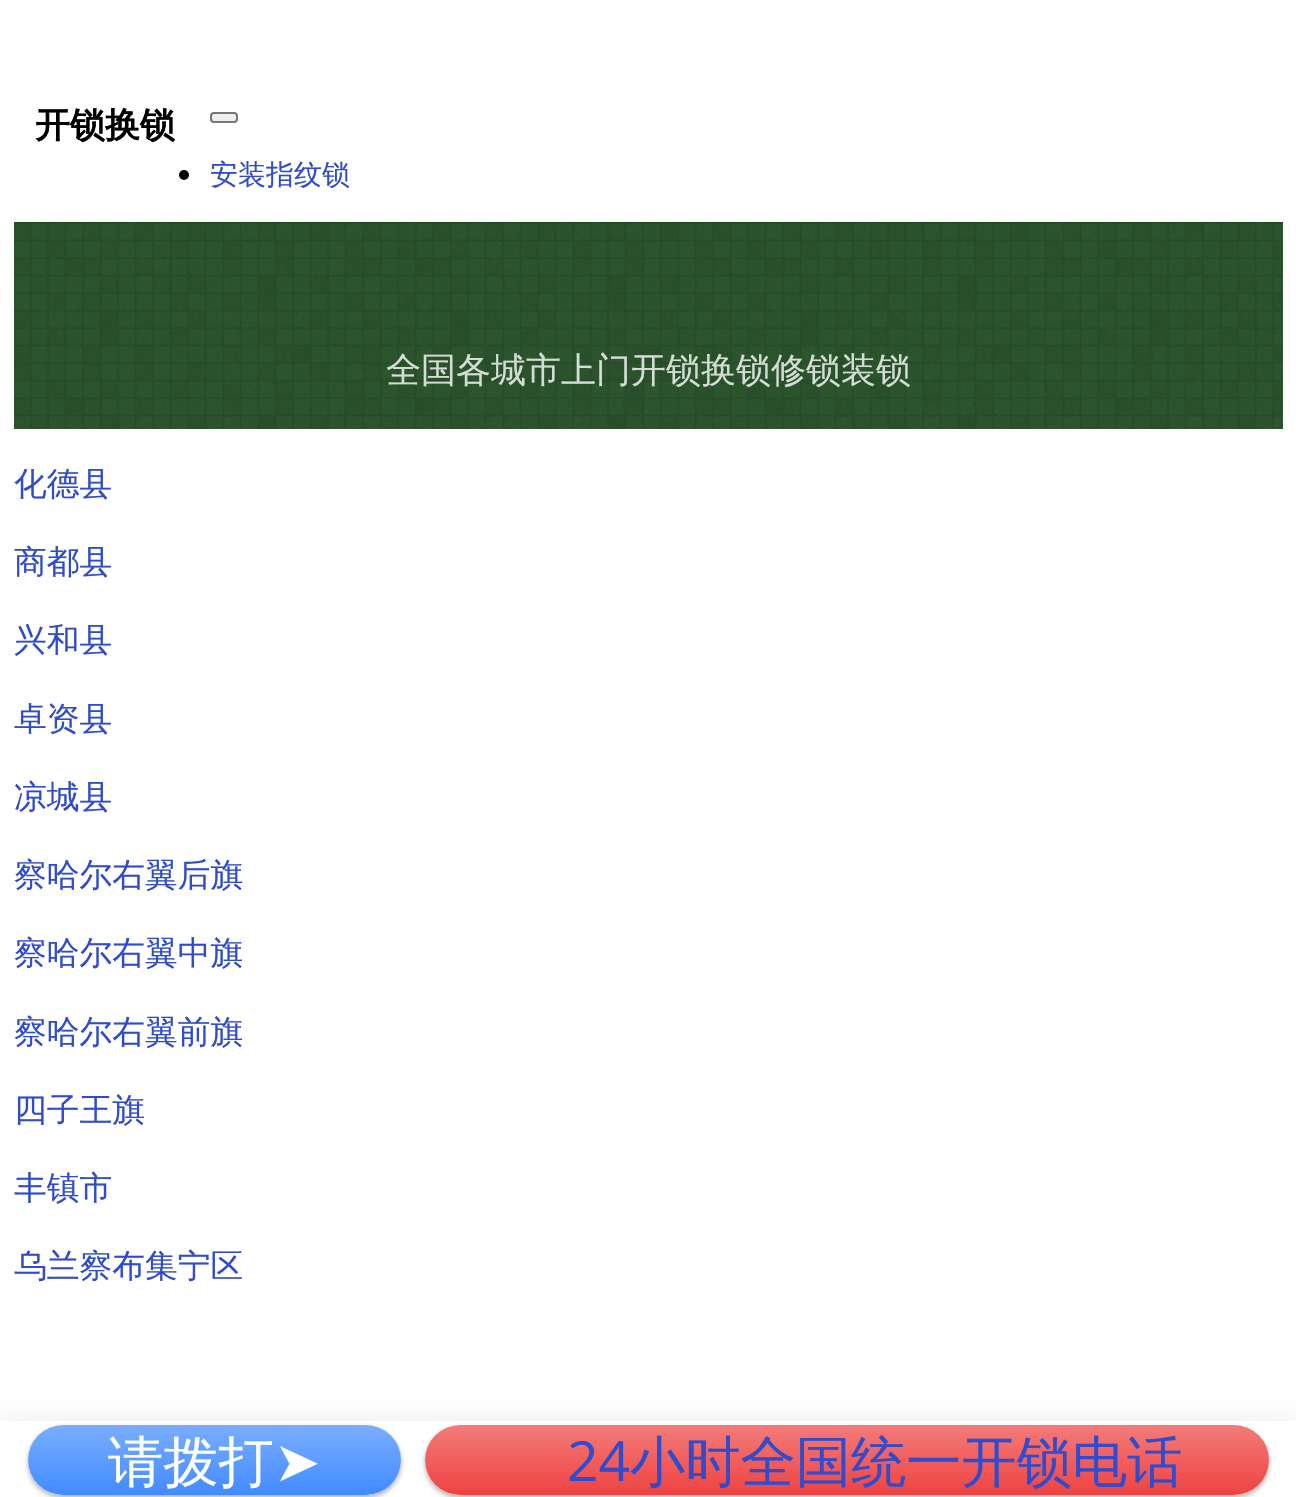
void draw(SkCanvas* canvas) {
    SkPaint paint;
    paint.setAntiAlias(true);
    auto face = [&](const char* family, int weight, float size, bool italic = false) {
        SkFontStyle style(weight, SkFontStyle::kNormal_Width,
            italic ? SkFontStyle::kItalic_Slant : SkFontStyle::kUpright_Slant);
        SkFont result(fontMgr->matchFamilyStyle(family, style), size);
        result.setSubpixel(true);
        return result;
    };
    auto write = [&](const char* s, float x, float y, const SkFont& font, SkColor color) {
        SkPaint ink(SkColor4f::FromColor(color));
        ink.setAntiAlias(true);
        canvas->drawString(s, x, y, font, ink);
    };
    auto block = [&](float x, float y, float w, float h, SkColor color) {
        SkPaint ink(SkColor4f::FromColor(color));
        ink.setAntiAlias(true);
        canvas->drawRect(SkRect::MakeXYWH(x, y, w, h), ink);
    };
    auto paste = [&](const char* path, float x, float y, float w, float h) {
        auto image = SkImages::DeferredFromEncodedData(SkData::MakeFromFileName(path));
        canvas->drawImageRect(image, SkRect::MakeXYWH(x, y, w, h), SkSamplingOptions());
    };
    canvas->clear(SK_ColorWHITE);
    auto kFont1 = face("WenQuanYi Zen Hei", 700, 35);
    write("开锁换锁", 35, 137, kFont1, SK_ColorBLACK);
    paint.setColor(SkColorSetRGB(239, 239, 239));
    canvas->drawRoundRect(SkRect::MakeXYWH(211, 113, 26, 9), 3, 3, paint);
    paint.setStyle(SkPaint::kStroke_Style);
    paint.setStrokeWidth(2);
    paint.setColor(SkColorSetRGB(118, 118, 118));
    canvas->drawRoundRect(SkRect::MakeXYWH(211, 113, 26, 9), 3, 3, paint);
    paint.setStyle(SkPaint::kFill_Style);
    paint.setColor(SK_ColorBLACK);
    canvas->drawCircle(184, 175, 5, paint);
    auto kFont2 = face("WenQuanYi Zen Hei", 500, 28);
    write("安装指纹锁", 210, 184, kFont2, SkColorSetRGB(48, 76, 204));
    block(14, 222, 1269, 207, SkColorSetRGB(43, 84, 44));
    paste("pic1.png", 14, 222, 1269, 207);
    auto kFont3 = face("WenQuanYi Zen Hei", 500, 35);
    write("全国各城市上门开锁换锁修锁装锁", 386, 382, kFont3, SkColorSetRGB(212, 220, 213));
    auto kFont4 = face("WenQuanYi Zen Hei", 500, 32.75f);
    write("化德县", 14, 495, kFont4, SkColorSetRGB(48, 76, 204));
    write("商都县", 14, 573, kFont4, SkColorSetRGB(48, 76, 204));
    write("兴和县", 14, 651, kFont4, SkColorSetRGB(48, 76, 204));
    write("卓资县", 14, 730, kFont4, SkColorSetRGB(48, 76, 204));
    write("凉城县", 14, 808, kFont4, SkColorSetRGB(48, 76, 204));
    write("察哈尔右翼后旗", 14, 886, kFont4, SkColorSetRGB(48, 76, 204));
    write("察哈尔右翼中旗", 14, 964, kFont4, SkColorSetRGB(48, 76, 204));
    write("察哈尔右翼前旗", 14, 1043, kFont4, SkColorSetRGB(48, 76, 204));
    write("四子王旗", 14, 1121, kFont4, SkColorSetRGB(48, 76, 204));
    write("丰镇市", 14, 1199, kFont4, SkColorSetRGB(48, 76, 204));
    write("乌兰察布集宁区", 14, 1277, kFont4, SkColorSetRGB(48, 76, 204));
    paint.setColor(SkColorSetARGB(33, 74, 74, 74));
    paint.setMaskFilter(SkMaskFilter::MakeBlur(kNormal_SkBlurStyle, 16));
    canvas->drawRect(SkRect::MakeXYWH(0, 1423, 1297, 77), paint);
    paint.setMaskFilter(nullptr);
    block(0, 1421, 1296, 76, SK_ColorWHITE);
    canvas->save();
    canvas->clipPath(SkPathBuilder(SkPathFillType::kEvenOdd).moveTo(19, 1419).lineTo(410, 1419).lineTo(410, 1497).lineTo(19, 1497).close().moveTo(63, 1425).lineTo(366, 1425).cubicTo(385.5f, 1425, 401, 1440.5f, 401, 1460).cubicTo(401, 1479.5f, 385.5f, 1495, 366, 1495).lineTo(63, 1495).cubicTo(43.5f, 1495, 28, 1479.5f, 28, 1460).cubicTo(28, 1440.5f, 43.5f, 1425, 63, 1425).close().detach(), true);
    paint.setColor(SkColorSetARGB(77, 0, 0, 0));
    paint.setMaskFilter(SkMaskFilter::MakeBlur(kNormal_SkBlurStyle, 2.5f));
    canvas->drawRoundRect(SkRect::MakeXYWH(28, 1428, 373, 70), 35, 35, paint);
    paint.setMaskFilter(nullptr);
    canvas->restore();
    {
        const SkColor colors[] = {SkColorSetARGB(179, 65, 139, 255), SkColorSetRGB(65, 139, 255)};
        const float stops[] = {0, 1};
        const SkPoint ends[] = {{214, 1425}, {214, 1495}};
        paint.setShader(SkGradientShader::MakeLinear(ends, colors, stops, 2, SkTileMode::kClamp));
        paint.setAlpha(255);
    }
    canvas->drawRoundRect(SkRect::MakeXYWH(28, 1425, 373, 70), 35, 35, paint);
    auto kFont5 = face("WenQuanYi Zen Hei", 500, 55.25f);
    write("请拨打", 108, 1481, kFont5, SK_ColorWHITE);
    auto kFont6 = face("DejaVu Sans", 400, 55.25f);
    write("➤", 274, 1481, kFont6, SK_ColorWHITE);
    canvas->save();
    canvas->clipPath(SkPathBuilder(SkPathFillType::kEvenOdd).moveTo(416, 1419).lineTo(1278, 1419).lineTo(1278, 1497).lineTo(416, 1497).close().moveTo(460, 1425).lineTo(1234, 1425).cubicTo(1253.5f, 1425, 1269, 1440.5f, 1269, 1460).cubicTo(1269, 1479.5f, 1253.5f, 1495, 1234, 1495).lineTo(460, 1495).cubicTo(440.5f, 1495, 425, 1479.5f, 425, 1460).cubicTo(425, 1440.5f, 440.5f, 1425, 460, 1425).close().detach(), true);
    paint.setShader(nullptr);
    paint.setColor(SkColorSetARGB(77, 0, 0, 0));
    paint.setMaskFilter(SkMaskFilter::MakeBlur(kNormal_SkBlurStyle, 2.5f));
    canvas->drawRoundRect(SkRect::MakeXYWH(425, 1428, 844, 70), 35, 35, paint);
    paint.setMaskFilter(nullptr);
    canvas->restore();
    {
        const SkColor colors[] = {SkColorSetARGB(179, 238, 67, 65), SkColorSetRGB(238, 67, 65)};
        const float stops[] = {0, 1};
        const SkPoint ends[] = {{847, 1425}, {847, 1495}};
        paint.setShader(SkGradientShader::MakeLinear(ends, colors, stops, 2, SkTileMode::kClamp));
        paint.setAlpha(255);
    }
    canvas->drawRoundRect(SkRect::MakeXYWH(425, 1425, 844, 70), 35, 35, paint);
    auto kFont7 = face("Open Sans", 400, 55.25f);
    write("24", 567, 1481, kFont7, SkColorSetRGB(48, 76, 204));
    write("小时全国统一开锁电话", 630, 1481, kFont5, SkColorSetRGB(48, 76, 204));
}
